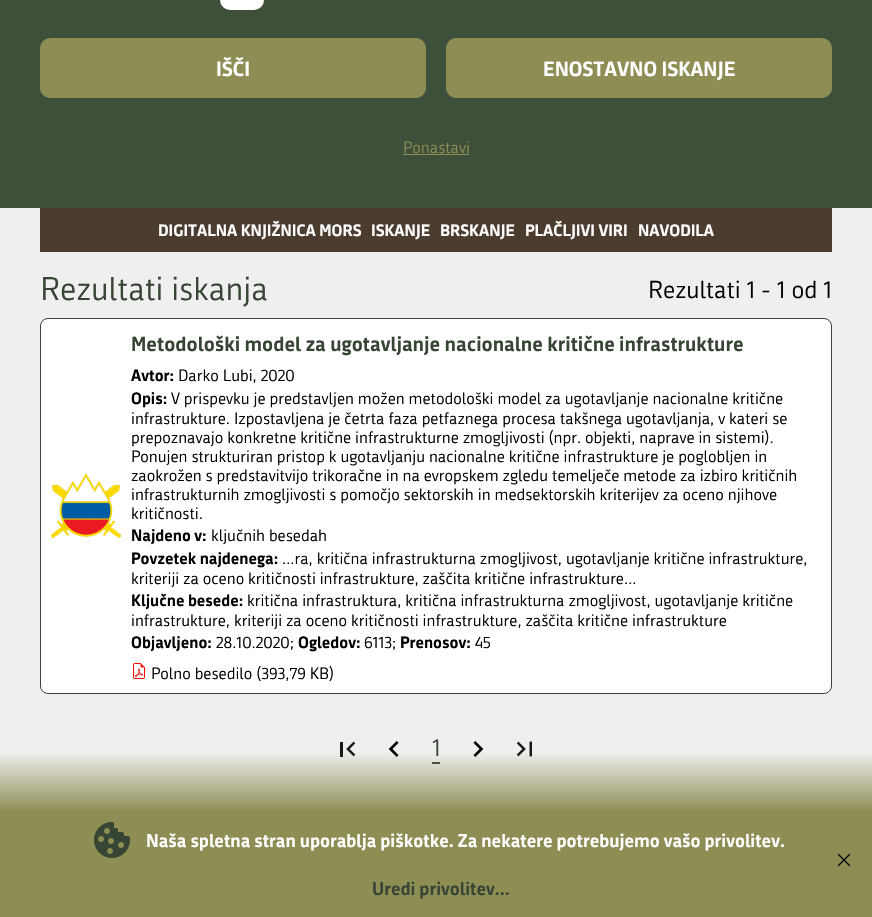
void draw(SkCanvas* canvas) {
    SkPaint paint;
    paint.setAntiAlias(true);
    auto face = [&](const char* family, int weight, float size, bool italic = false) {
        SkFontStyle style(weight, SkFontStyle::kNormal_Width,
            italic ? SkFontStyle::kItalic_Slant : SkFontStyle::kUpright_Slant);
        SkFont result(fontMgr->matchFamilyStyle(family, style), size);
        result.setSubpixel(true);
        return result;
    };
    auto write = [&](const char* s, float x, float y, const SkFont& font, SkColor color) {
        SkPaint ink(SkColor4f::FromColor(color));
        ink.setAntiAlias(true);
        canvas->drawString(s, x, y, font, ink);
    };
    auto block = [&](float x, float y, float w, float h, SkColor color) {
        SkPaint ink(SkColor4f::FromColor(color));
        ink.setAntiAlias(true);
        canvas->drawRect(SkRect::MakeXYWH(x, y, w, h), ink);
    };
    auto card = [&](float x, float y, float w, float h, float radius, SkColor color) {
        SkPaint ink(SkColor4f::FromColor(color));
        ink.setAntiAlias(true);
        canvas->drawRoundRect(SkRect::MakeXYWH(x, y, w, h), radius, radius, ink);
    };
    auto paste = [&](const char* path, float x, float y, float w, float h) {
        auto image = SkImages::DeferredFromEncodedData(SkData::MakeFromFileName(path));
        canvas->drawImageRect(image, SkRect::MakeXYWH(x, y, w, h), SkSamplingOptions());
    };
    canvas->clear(SkColorSetRGB(239, 239, 239));
    block(0, 0, 872, 208, SkColorSetRGB(63, 80, 58));
    card(220, -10, 44, 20, 10, SK_ColorWHITE);
    card(40, 38, 386, 60, 10, SkColorSetRGB(141, 141, 84));
    auto kFont1 = face("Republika", 700, 20);
    write("IŠČI", 216, 76, kFont1, SK_ColorWHITE);
    card(446, 38, 386, 60, 10, SkColorSetRGB(141, 141, 84));
    write("ENOSTAVNO ISKANJE", 543, 76, kFont1, SK_ColorWHITE);
    auto kFont2 = face("Republika", 400, 16);
    write("Ponastavi", 403, 153, kFont2, SkColorSetRGB(141, 141, 84));
    block(403, 154, 66, 1, SkColorSetRGB(141, 141, 84));
    block(40, 208, 792, 44, SkColorSetRGB(75, 60, 48));
    auto kFont3 = face("Republika", 700, 16);
    write("DIGITALNA KNJIŽNICA MORS", 158, 236, kFont3, SK_ColorWHITE);
    write("ISKANJE", 371, 236, kFont3, SK_ColorWHITE);
    write("BRSKANJE", 440, 236, kFont3, SK_ColorWHITE);
    write("PLAČLJIVI VIRI", 525, 236, kFont3, SK_ColorWHITE);
    write("NAVODILA", 638, 236, kFont3, SK_ColorWHITE);
    auto kFont4 = face("Republika", 400, 32);
    write("Rezultati iskanja", 40, 300, kFont4, SkColorSetRGB(55, 70, 52));
    auto kFont5 = face("Republika", 400, 24);
    write("Rezultati 1 - 1 od 1", 648, 298, kFont5, SK_ColorBLACK);
    paint.setColor(SK_ColorWHITE);
    canvas->drawRoundRect(SkRect::MakeXYWH(40.5f, 318.5f, 791, 375), 7.5f, 7.5f, paint);
    paint.setStyle(SkPaint::kStroke_Style);
    paint.setStrokeWidth(1);
    paint.setColor(SkColorSetRGB(55, 70, 52));
    canvas->drawRoundRect(SkRect::MakeXYWH(40.5f, 318.5f, 791, 375), 7.5f, 7.5f, paint);
    paste("pic1.png", 51, 473, 70, 66);
    write("Metodološki model za ugotavljanje nacionalne kritične infrastrukture", 131, 351, kFont1, SkColorSetRGB(55, 70, 52));
    write("Avtor:", 131, 381, kFont3, SK_ColorBLACK);
    write("Darko Lubi, 2020", 178, 381, kFont2, SK_ColorBLACK);
    write("Opis:", 131, 404, kFont3, SK_ColorBLACK);
    write("V prispevku je predstavljen možen metodološki model za ugotavljanje nacionalne kritične", 171, 404, kFont2, SK_ColorBLACK);
    write("infrastrukture. Izpostavljena je četrta faza petfaznega procesa takšnega ugotavljanja, v kateri se", 131, 424, kFont2, SK_ColorBLACK);
    write("prepoznavajo konkretne kritične infrastrukturne zmogljivosti (npr. objekti, naprave in sistemi).", 131, 443, kFont2, SK_ColorBLACK);
    write("Ponujen strukturiran pristop k ugotavljanju nacionalne kritične infrastrukture je poglobljen in", 131, 462, kFont2, SK_ColorBLACK);
    write("zaokrožen s predstavitvijo trikoračne in na evropskem zgledu temelječe metode za izbiro kritičnih", 131, 481, kFont2, SK_ColorBLACK);
    write("infrastrukturnih zmogljivosti s pomočjo sektorskih in medsektorskih kriterijev za oceno njihove", 131, 500, kFont2, SK_ColorBLACK);
    write("kritičnosti.", 131, 519, kFont2, SK_ColorBLACK);
    write("Najdeno v:", 131, 541, kFont3, SK_ColorBLACK);
    write("ključnih besedah", 211, 541, kFont2, SK_ColorBLACK);
    write("Povzetek najdenega:", 131, 564, kFont3, SK_ColorBLACK);
    write("...ra, kritična infrastrukturna zmogljivost, ugotavljanje kritične infrastrukture,", 282, 564, kFont2, SK_ColorBLACK);
    write("kriteriji za oceno kritičnosti infrastrukture, zaščita kritične infrastrukture...", 131, 584, kFont2, SK_ColorBLACK);
    write("Ključne besede:", 131, 606, kFont3, SK_ColorBLACK);
    write("kritična infrastruktura, kritična infrastrukturna zmogljivost, ugotavljanje kritične", 247, 606, kFont2, SK_ColorBLACK);
    write("infrastrukture, kriteriji za oceno kritičnosti infrastrukture, zaščita kritične infrastrukture", 131, 626, kFont2, SK_ColorBLACK);
    write("Objavljeno:", 131, 648, kFont3, SK_ColorBLACK);
    write("28.10.2020;", 216, 648, kFont2, SK_ColorBLACK);
    write("Ogledov:", 298, 648, kFont3, SK_ColorBLACK);
    write("6113;", 364, 648, kFont2, SK_ColorBLACK);
    write("Prenosov:", 400, 648, kFont3, SK_ColorBLACK);
    write("45", 475, 648, kFont2, SK_ColorBLACK);
    paste("pic2.png", 133, 663, 12, 16);
    write("Polno besedilo (393,79 KB)", 151, 679, kFont2, SK_ColorBLACK);
    paste("pic3.png", 340, 741, 16, 16);
    paste("pic4.png", 388, 741, 11, 16);
    write("1", 432, 756, kFont5, SkColorSetRGB(55, 70, 52));
    block(432, 762, 8, 2, SkColorSetRGB(55, 70, 52));
    paste("pic5.png", 473, 741, 11, 16);
    paste("pic6.png", 516, 741, 16, 16);
    paint.setStyle(SkPaint::kFill_Style);
    {
        const SkColor colors[] = {SkColorSetARGB(0, 141, 141, 84), SkColorSetRGB(141, 141, 84)};
        const float stops[] = {0, 1};
        const SkPoint ends[] = {{436, 752}, {436, 812}};
        paint.setShader(SkGradientShader::MakeLinear(ends, colors, stops, 2, SkTileMode::kClamp));
        paint.setAlpha(255);
    }
    canvas->drawRect(SkRect::MakeXYWH(0, 753, 872, 58), paint);
    block(0, 811, 872, 106, SkColorSetRGB(141, 141, 84));
    paste("pic7.png", 94, 822, 36, 36);
    auto kFont6 = face("Republika", 700, 18);
    write("Naša spletna stran uporablja piškotke. Za nekatere potrebujemo vašo privolitev.", 146, 847, kFont6, SK_ColorWHITE);
    write("Uredi privolitev...", 372, 895, kFont6, SkColorSetRGB(55, 70, 52));
    paint.setStyle(SkPaint::kStroke_Style);
    paint.setStrokeWidth(1.3f);
    paint.setStrokeCap(SkPaint::kRound_Cap);
    paint.setStrokeJoin(SkPaint::kRound_Join);
    paint.setShader(nullptr);
    paint.setColor(SK_ColorBLACK);
    canvas->drawPath(SkPathBuilder().moveTo(838.5f, 854.5f).lineTo(849.5f, 865.5f).moveTo(838.5f, 865.5f).lineTo(849.5f, 854.5f).detach(), paint);
}
